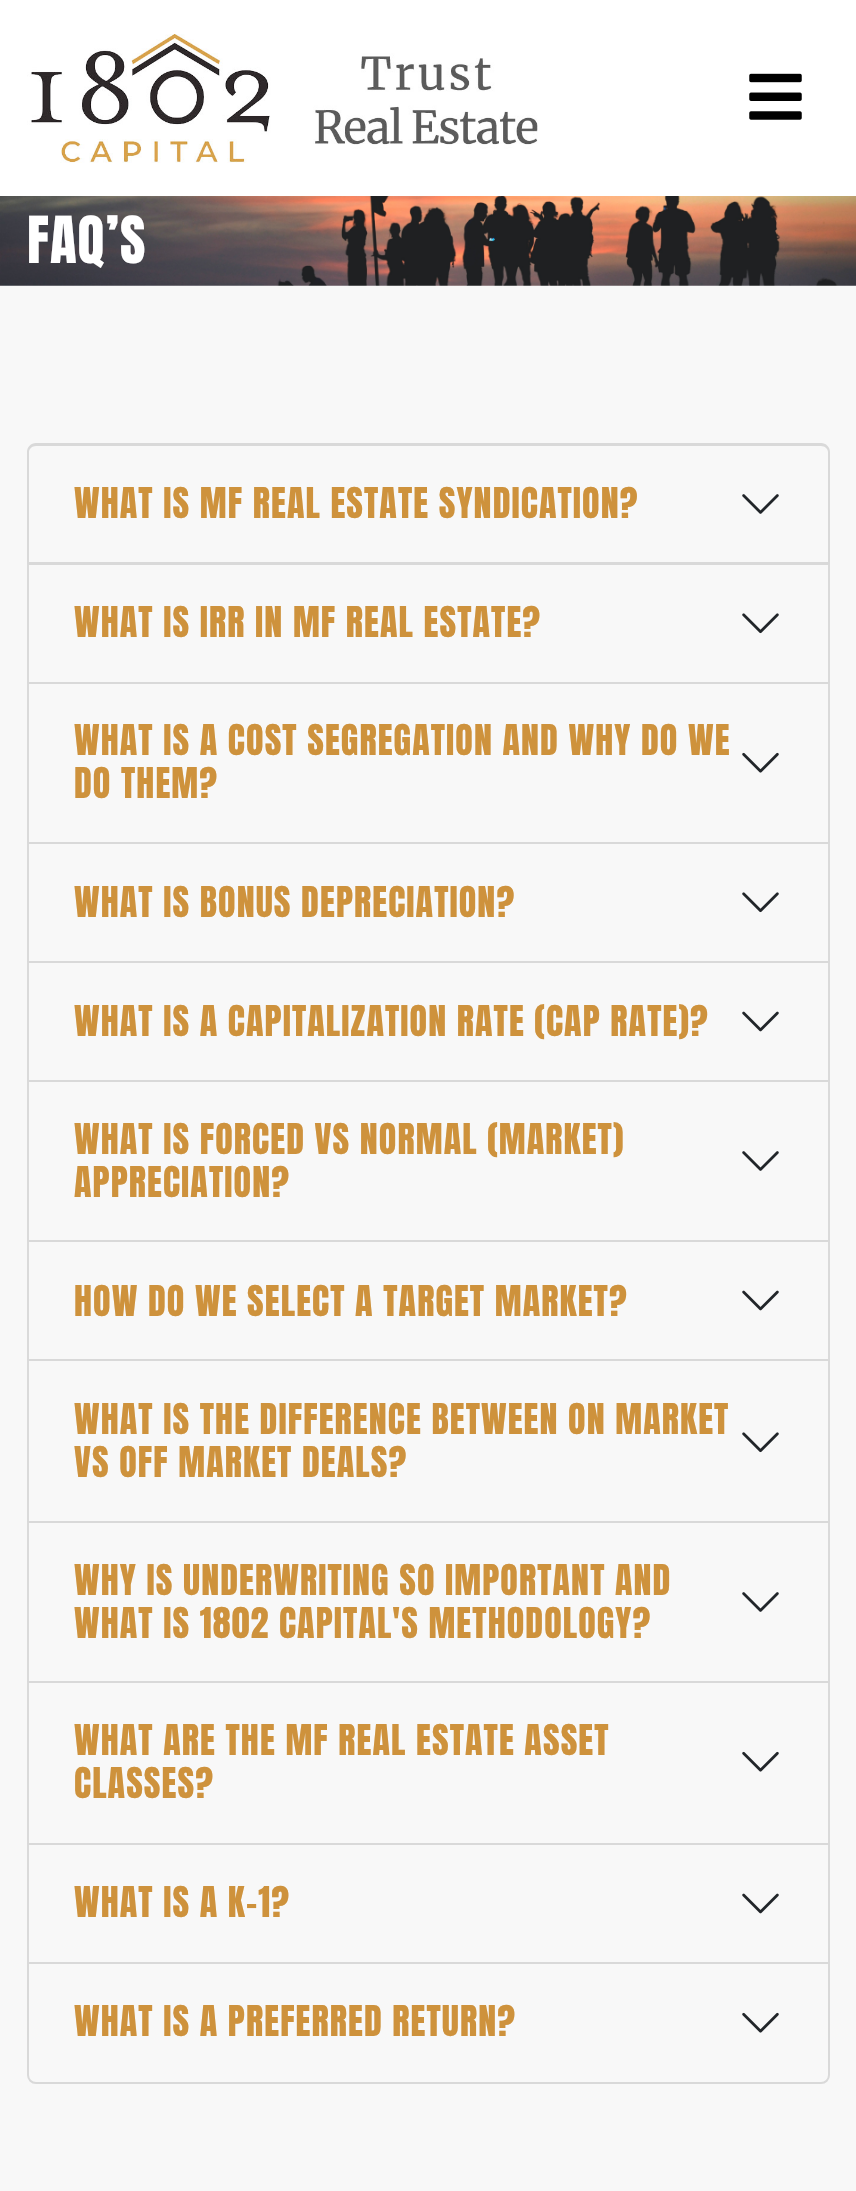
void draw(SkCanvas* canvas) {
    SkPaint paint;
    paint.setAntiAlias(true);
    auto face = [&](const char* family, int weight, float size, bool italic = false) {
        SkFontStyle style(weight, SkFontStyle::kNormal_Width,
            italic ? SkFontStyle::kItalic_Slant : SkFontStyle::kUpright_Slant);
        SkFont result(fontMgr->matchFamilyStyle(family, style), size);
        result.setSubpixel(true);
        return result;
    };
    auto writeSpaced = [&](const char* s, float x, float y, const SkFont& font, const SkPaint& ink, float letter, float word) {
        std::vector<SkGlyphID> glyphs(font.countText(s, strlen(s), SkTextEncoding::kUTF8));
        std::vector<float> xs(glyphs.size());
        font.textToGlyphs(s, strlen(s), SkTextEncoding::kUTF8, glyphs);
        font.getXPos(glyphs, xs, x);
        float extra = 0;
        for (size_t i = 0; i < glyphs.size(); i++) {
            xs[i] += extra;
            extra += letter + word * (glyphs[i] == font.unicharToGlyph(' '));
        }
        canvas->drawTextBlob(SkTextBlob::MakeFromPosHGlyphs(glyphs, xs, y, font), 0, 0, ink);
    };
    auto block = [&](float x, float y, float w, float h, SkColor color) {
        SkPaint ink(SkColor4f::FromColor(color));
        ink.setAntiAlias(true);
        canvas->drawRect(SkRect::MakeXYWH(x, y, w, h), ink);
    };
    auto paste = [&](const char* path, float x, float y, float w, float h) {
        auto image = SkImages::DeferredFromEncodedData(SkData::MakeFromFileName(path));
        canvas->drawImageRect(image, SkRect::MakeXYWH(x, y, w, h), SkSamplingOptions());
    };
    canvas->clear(SK_ColorWHITE);
    paste("pic1.png", 27, 34, 511, 129);
    paste("pic2.png", 749, 73, 53, 47);
    paste("pic3.png", 0, 196, 856, 90);
    auto kFont1 = face("Anton", 400, 55);
    paint.setColor(SK_ColorWHITE);
    writeSpaced("FAQ’S", 27, 263, kFont1, paint, 1.1f, 0);
    block(0, 286, 856, 1905, SkColorSetRGB(248, 248, 248));
    paint.setColor(SkColorSetRGB(217, 217, 217));
    canvas->drawPath(SkPathBuilder(SkPathFillType::kEvenOdd).moveTo(36, 443).lineTo(821, 443).cubicTo(826, 443, 830, 447, 830, 452).lineTo(830, 562).lineTo(27, 562).lineTo(27, 452).cubicTo(27, 447, 31, 443, 36, 443).close().moveTo(36, 446).lineTo(821, 446).cubicTo(825, 446, 828, 449, 828, 452).lineTo(828, 562).lineTo(29, 562).lineTo(29, 452).cubicTo(29, 449, 32, 446, 36, 446).close().detach(), paint);
    auto kFont2 = face("Anton", 400, 36);
    paint.setColor(SkColorSetRGB(206, 146, 60));
    writeSpaced("WHAT IS MF REAL ESTATE SYNDICATION?", 74, 518, kFont2, paint, 1.1f, 0);
    paste("pic4.png", 742, 494, 37, 20);
    paint.setColor(SkColorSetRGB(217, 217, 217));
    canvas->drawPath(SkPathBuilder().moveTo(27, 562).lineTo(830, 562).lineTo(828, 565).lineTo(29, 565).close().detach(), paint);
    paint.setColor(SkColorSetARGB(31, 0, 0, 0));
    canvas->drawPath(SkPathBuilder().moveTo(830, 562).lineTo(830, 682).lineTo(828, 682).lineTo(828, 565).close().detach(), paint);
    canvas->drawPath(SkPathBuilder().moveTo(27, 682).lineTo(27, 562).lineTo(29, 565).lineTo(29, 682).close().detach(), paint);
    paint.setColor(SkColorSetRGB(206, 146, 60));
    writeSpaced("WHAT IS IRR IN MF REAL ESTATE?", 74, 637, kFont2, paint, 1.1f, 0);
    paste("pic5.png", 742, 613, 37, 21);
    paint.setColor(SkColorSetRGB(217, 217, 217));
    canvas->drawPath(SkPathBuilder().moveTo(27, 682).lineTo(830, 682).lineTo(828, 684).lineTo(29, 684).close().detach(), paint);
    paint.setColor(SkColorSetARGB(31, 0, 0, 0));
    canvas->drawPath(SkPathBuilder().moveTo(830, 682).lineTo(830, 842).lineTo(828, 842).lineTo(828, 684).close().detach(), paint);
    canvas->drawPath(SkPathBuilder().moveTo(27, 842).lineTo(27, 682).lineTo(29, 684).lineTo(29, 842).close().detach(), paint);
    paint.setColor(SkColorSetRGB(206, 146, 60));
    writeSpaced("WHAT IS A COST SEGREGATION AND WHY DO WE", 74, 755, kFont2, paint, 1.1f, 0);
    paste("pic6.png", 742, 752, 37, 21);
    writeSpaced("DO THEM?", 74, 798, kFont2, paint, 1.1f, 0);
    paint.setColor(SkColorSetRGB(217, 217, 217));
    canvas->drawPath(SkPathBuilder().moveTo(27, 842).lineTo(830, 842).lineTo(828, 844).lineTo(29, 844).close().detach(), paint);
    paint.setColor(SkColorSetARGB(31, 0, 0, 0));
    canvas->drawPath(SkPathBuilder().moveTo(830, 842).lineTo(830, 961).lineTo(828, 961).lineTo(828, 844).close().detach(), paint);
    canvas->drawPath(SkPathBuilder().moveTo(27, 961).lineTo(27, 842).lineTo(29, 844).lineTo(29, 961).close().detach(), paint);
    paint.setColor(SkColorSetRGB(206, 146, 60));
    writeSpaced("WHAT IS BONUS DEPRECIATION?", 74, 917, kFont2, paint, 1.1f, 0);
    paste("pic5.png", 742, 892, 37, 21);
    paint.setColor(SkColorSetRGB(217, 217, 217));
    canvas->drawPath(SkPathBuilder().moveTo(27, 961).lineTo(830, 961).lineTo(828, 963).lineTo(29, 963).close().detach(), paint);
    paint.setColor(SkColorSetARGB(31, 0, 0, 0));
    canvas->drawPath(SkPathBuilder().moveTo(830, 961).lineTo(830, 1080).lineTo(828, 1080).lineTo(828, 963).close().detach(), paint);
    canvas->drawPath(SkPathBuilder().moveTo(27, 1080).lineTo(27, 961).lineTo(29, 963).lineTo(29, 1080).close().detach(), paint);
    paint.setColor(SkColorSetRGB(206, 146, 60));
    writeSpaced("WHAT IS A CAPITALIZATION RATE (CAP RATE)?", 74, 1036, kFont2, paint, 1.1f, 0);
    paste("pic7.png", 742, 1011, 37, 21);
    paint.setColor(SkColorSetRGB(217, 217, 217));
    canvas->drawPath(SkPathBuilder().moveTo(27, 1080).lineTo(830, 1080).lineTo(828, 1082).lineTo(29, 1082).close().detach(), paint);
    paint.setColor(SkColorSetARGB(31, 0, 0, 0));
    canvas->drawPath(SkPathBuilder().moveTo(830, 1080).lineTo(830, 1240).lineTo(828, 1240).lineTo(828, 1082).close().detach(), paint);
    canvas->drawPath(SkPathBuilder().moveTo(27, 1240).lineTo(27, 1080).lineTo(29, 1082).lineTo(29, 1240).close().detach(), paint);
    paint.setColor(SkColorSetRGB(206, 146, 60));
    writeSpaced("WHAT IS FORCED VS NORMAL (MARKET)", 74, 1154, kFont2, paint, 1.1f, 0);
    paste("pic4.png", 742, 1151, 37, 20);
    writeSpaced("APPRECIATION?", 74, 1197, kFont2, paint, 1.1f, 0);
    paint.setColor(SkColorSetRGB(217, 217, 217));
    canvas->drawPath(SkPathBuilder().moveTo(27, 1240).lineTo(830, 1240).lineTo(828, 1242).lineTo(29, 1242).close().detach(), paint);
    paint.setColor(SkColorSetARGB(31, 0, 0, 0));
    canvas->drawPath(SkPathBuilder().moveTo(830, 1240).lineTo(830, 1359).lineTo(828, 1359).lineTo(828, 1242).close().detach(), paint);
    canvas->drawPath(SkPathBuilder().moveTo(27, 1359).lineTo(27, 1240).lineTo(29, 1242).lineTo(29, 1359).close().detach(), paint);
    paint.setColor(SkColorSetRGB(206, 146, 60));
    writeSpaced("HOW DO WE SELECT A TARGET MARKET?", 74, 1316, kFont2, paint, 1.1f, 0);
    paste("pic7.png", 742, 1290, 37, 21);
    paint.setColor(SkColorSetRGB(217, 217, 217));
    canvas->drawPath(SkPathBuilder().moveTo(27, 1359).lineTo(830, 1359).lineTo(828, 1361).lineTo(29, 1361).close().detach(), paint);
    paint.setColor(SkColorSetARGB(31, 0, 0, 0));
    canvas->drawPath(SkPathBuilder().moveTo(830, 1359).lineTo(830, 1521).lineTo(828, 1521).lineTo(828, 1361).close().detach(), paint);
    canvas->drawPath(SkPathBuilder().moveTo(27, 1521).lineTo(27, 1359).lineTo(29, 1361).lineTo(29, 1521).close().detach(), paint);
    paint.setColor(SkColorSetRGB(206, 146, 60));
    writeSpaced("WHAT IS THE DIFFERENCE BETWEEN ON MARKET", 74, 1434, kFont2, paint, 1.1f, 0);
    paste("pic5.png", 742, 1432, 37, 21);
    writeSpaced("VS OFF MARKET DEALS?", 74, 1477, kFont2, paint, 1.1f, 0);
    paint.setColor(SkColorSetRGB(217, 217, 217));
    canvas->drawPath(SkPathBuilder().moveTo(27, 1521).lineTo(830, 1521).lineTo(828, 1523).lineTo(29, 1523).close().detach(), paint);
    paint.setColor(SkColorSetARGB(31, 0, 0, 0));
    canvas->drawPath(SkPathBuilder().moveTo(830, 1521).lineTo(830, 1681).lineTo(828, 1681).lineTo(828, 1523).close().detach(), paint);
    canvas->drawPath(SkPathBuilder().moveTo(27, 1681).lineTo(27, 1521).lineTo(29, 1523).lineTo(29, 1681).close().detach(), paint);
    paint.setColor(SkColorSetRGB(206, 146, 60));
    writeSpaced("WHY IS UNDERWRITING SO IMPORTANT AND", 74, 1595, kFont2, paint, 1.1f, 0);
    paste("pic4.png", 742, 1592, 37, 20);
    writeSpaced("WHAT IS 1802 CAPITAL'S METHODOLOGY?", 74, 1638, kFont2, paint, 1.1f, 0);
    paint.setColor(SkColorSetRGB(217, 217, 217));
    canvas->drawPath(SkPathBuilder().moveTo(27, 1681).lineTo(830, 1681).lineTo(828, 1683).lineTo(29, 1683).close().detach(), paint);
    paint.setColor(SkColorSetARGB(31, 0, 0, 0));
    canvas->drawPath(SkPathBuilder().moveTo(830, 1681).lineTo(830, 1843).lineTo(828, 1843).lineTo(828, 1683).close().detach(), paint);
    canvas->drawPath(SkPathBuilder().moveTo(27, 1843).lineTo(27, 1681).lineTo(29, 1683).lineTo(29, 1843).close().detach(), paint);
    paint.setColor(SkColorSetRGB(206, 146, 60));
    writeSpaced("WHAT ARE THE MF REAL ESTATE ASSET", 74, 1755, kFont2, paint, 1.1f, 0);
    paste("pic6.png", 742, 1751, 37, 21);
    writeSpaced("CLASSES?", 74, 1798, kFont2, paint, 1.1f, 0);
    paint.setColor(SkColorSetRGB(217, 217, 217));
    canvas->drawPath(SkPathBuilder().moveTo(27, 1843).lineTo(830, 1843).lineTo(828, 1845).lineTo(29, 1845).close().detach(), paint);
    paint.setColor(SkColorSetARGB(31, 0, 0, 0));
    canvas->drawPath(SkPathBuilder().moveTo(830, 1843).lineTo(830, 1962).lineTo(828, 1962).lineTo(828, 1845).close().detach(), paint);
    canvas->drawPath(SkPathBuilder().moveTo(27, 1962).lineTo(27, 1843).lineTo(29, 1845).lineTo(29, 1962).close().detach(), paint);
    paint.setColor(SkColorSetRGB(206, 146, 60));
    writeSpaced("WHAT IS A K-1?", 74, 1917, kFont2, paint, 1.1f, 0);
    paste("pic7.png", 742, 1893, 37, 21);
    paint.setStyle(SkPaint::kStroke_Style);
    paint.setStrokeWidth(2);
    paint.setColor(SkColorSetRGB(217, 217, 217));
    canvas->drawPath(SkPathBuilder().moveTo(28, 1963).lineTo(829, 1963).lineTo(829, 2075).cubicTo(829, 2079.5f, 825.5f, 2083, 821, 2083).lineTo(36, 2083).cubicTo(31.5f, 2083, 28, 2079.5f, 28, 2075).close().detach(), paint);
    paint.setStyle(SkPaint::kFill_Style);
    paint.setColor(SkColorSetRGB(206, 146, 60));
    writeSpaced("WHAT IS A PREFERRED RETURN?", 74, 2036, kFont2, paint, 1.1f, 0);
    paste("pic6.png", 742, 2012, 37, 21);
}
